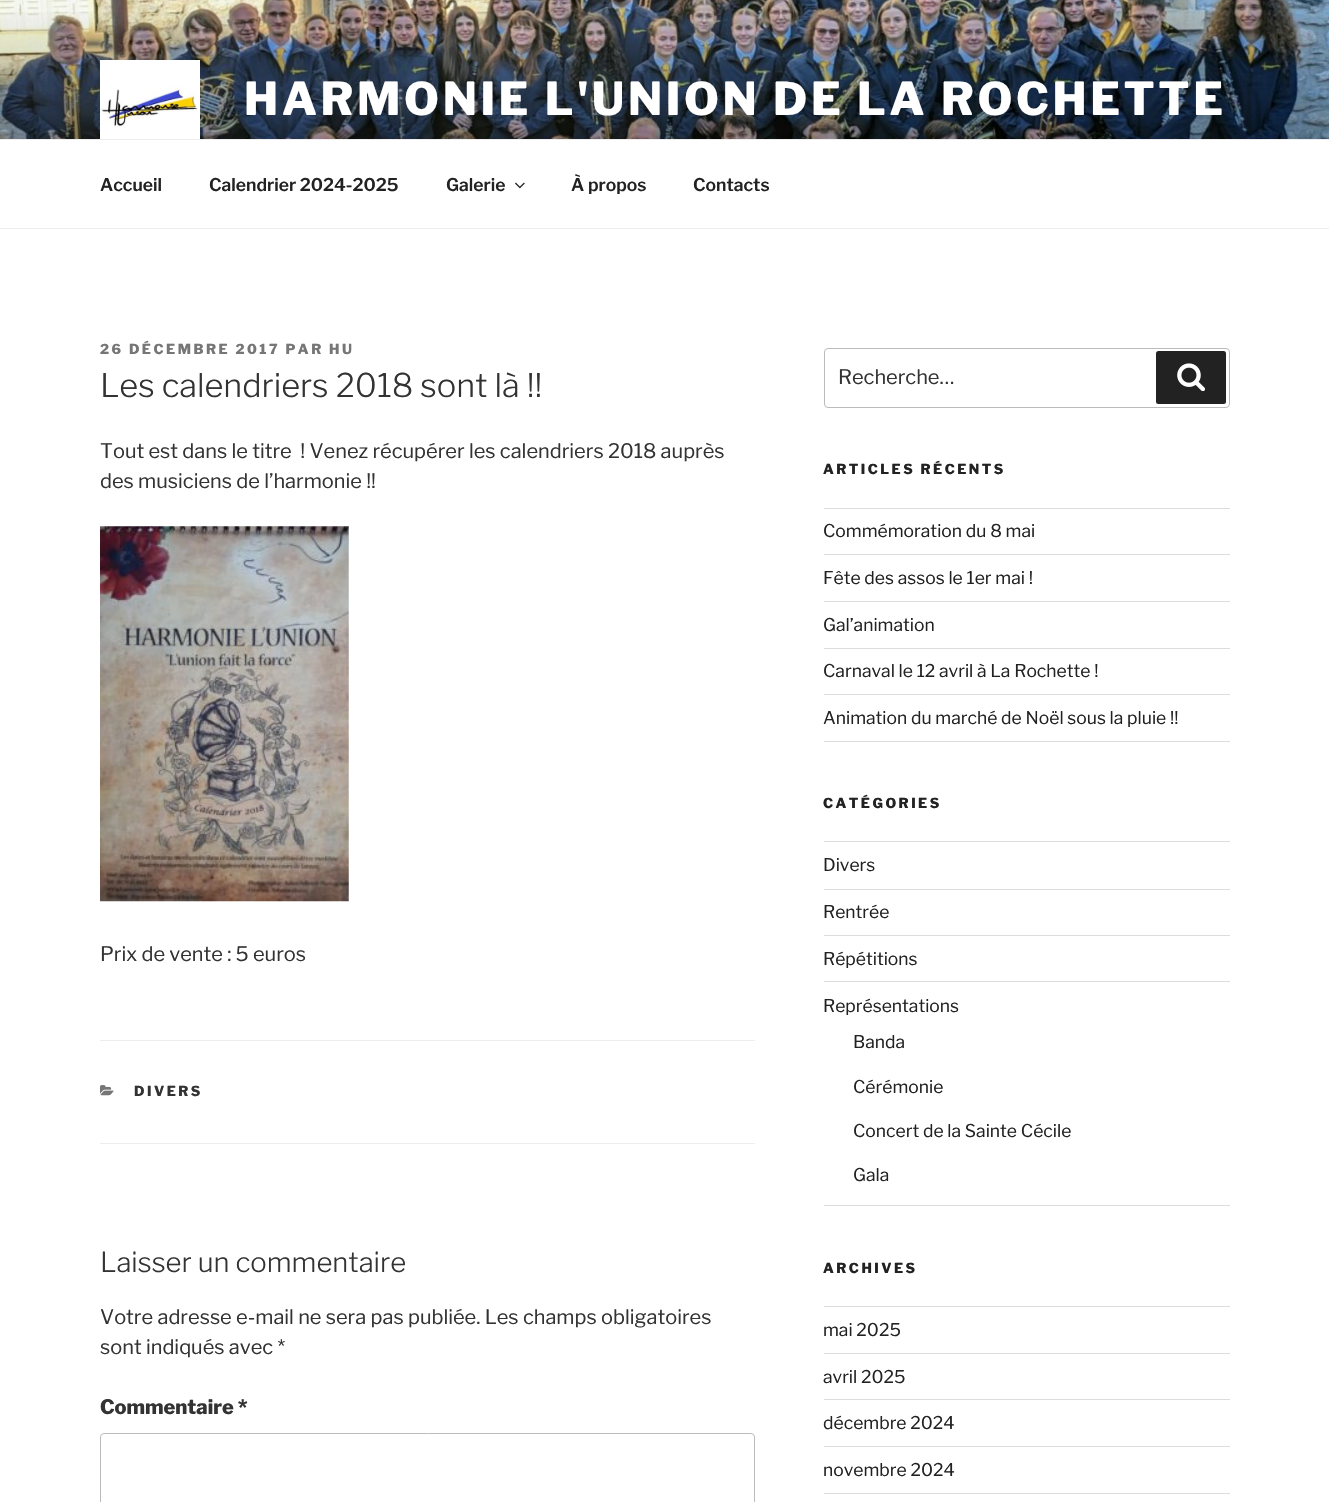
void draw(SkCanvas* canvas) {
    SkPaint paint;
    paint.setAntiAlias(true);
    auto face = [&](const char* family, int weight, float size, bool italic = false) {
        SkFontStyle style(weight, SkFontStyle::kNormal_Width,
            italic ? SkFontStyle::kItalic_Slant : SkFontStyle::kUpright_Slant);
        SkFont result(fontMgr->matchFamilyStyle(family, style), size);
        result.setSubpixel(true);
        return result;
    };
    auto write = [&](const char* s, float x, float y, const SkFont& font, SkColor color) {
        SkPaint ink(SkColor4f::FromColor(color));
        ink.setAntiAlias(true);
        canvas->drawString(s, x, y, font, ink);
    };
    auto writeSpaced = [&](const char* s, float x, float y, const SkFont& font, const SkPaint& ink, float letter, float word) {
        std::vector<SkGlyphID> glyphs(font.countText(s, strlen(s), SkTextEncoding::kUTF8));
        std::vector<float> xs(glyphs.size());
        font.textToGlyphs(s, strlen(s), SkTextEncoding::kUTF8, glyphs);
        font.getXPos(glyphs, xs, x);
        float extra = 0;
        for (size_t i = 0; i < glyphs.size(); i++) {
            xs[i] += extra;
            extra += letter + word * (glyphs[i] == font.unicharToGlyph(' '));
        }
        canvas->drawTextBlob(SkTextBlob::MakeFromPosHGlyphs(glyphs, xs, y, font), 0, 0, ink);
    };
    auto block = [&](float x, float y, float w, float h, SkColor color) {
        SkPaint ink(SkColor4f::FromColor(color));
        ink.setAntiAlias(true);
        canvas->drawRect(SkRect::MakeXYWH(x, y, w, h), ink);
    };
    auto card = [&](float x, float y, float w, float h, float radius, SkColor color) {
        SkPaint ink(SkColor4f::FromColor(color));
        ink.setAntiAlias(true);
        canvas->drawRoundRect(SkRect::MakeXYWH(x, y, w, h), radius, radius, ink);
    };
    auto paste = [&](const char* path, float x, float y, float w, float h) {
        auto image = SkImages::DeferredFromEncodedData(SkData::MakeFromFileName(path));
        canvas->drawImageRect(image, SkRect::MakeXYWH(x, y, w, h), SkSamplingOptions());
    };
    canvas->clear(SK_ColorWHITE);
    paste("pic1.png", 0, 0, 1329, 139);
    {
        const SkColor colors[] = {SkColorSetARGB(0, 0, 0, 0), SkColorSetARGB(77, 0, 0, 0), SkColorSetARGB(77, 0, 0, 0)};
        const float stops[] = {0, 0.75f, 1};
        const SkPoint ends[] = {{665, 0}, {665, 229}};
        paint.setShader(SkGradientShader::MakeLinear(ends, colors, stops, 3, SkTileMode::kClamp));
        paint.setAlpha(255);
    }
    canvas->drawRect(SkRect::MakeXYWH(0, 12, 1329, 127), paint);
    paste("pic2.png", 100, 60, 100, 79);
    auto kFont1 = face("Libre Franklin", 100, 45);
    paint.setShader(nullptr);
    paint.setColor(SK_ColorWHITE);
    writeSpaced("HARMONIE L'UNION DE LA ROCHETTE", 244, 115, kFont1, paint, 3.6f, 0);
    block(0, 139, 1329, 1, SkColorSetRGB(238, 238, 238));
    block(0, 228, 1329, 1, SkColorSetRGB(238, 238, 238));
    auto kFont2 = face("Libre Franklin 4", 100, 17.5f);
    write("Accueil", 100, 191, kFont2, SkColorSetRGB(34, 34, 34));
    write("Calendrier 2024-2025", 209, 191, kFont2, SkColorSetRGB(34, 34, 34));
    write("Galerie", 446, 191, kFont2, SkColorSetRGB(34, 34, 34));
    paste("pic3.png", 515, 182, 10, 7);
    write("À propos", 571, 191, kFont2, SkColorSetRGB(34, 34, 34));
    write("Contacts", 693, 191, kFont2, SkColorSetRGB(34, 34, 34));
    auto kFont3 = face("Libre Franklin", 100, 13.75f);
    paint.setColor(SkColorSetRGB(118, 118, 118));
    writeSpaced("26 DÉCEMBRE 2017 PAR HU", 100, 354, kFont3, paint, 2.5f, 0);
    auto kFont4 = face("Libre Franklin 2", 100, 32.5f);
    write("Les calendriers 2018 sont là !!", 100, 397, kFont4, SkColorSetRGB(51, 51, 51));
    auto kFont5 = face("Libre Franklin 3", 100, 20);
    write("Tout est dans le titre  ! Venez récupérer les calendriers 2018 auprès", 100, 458, kFont5, SkColorSetRGB(51, 51, 51));
    write("des musiciens de l’harmonie !!", 100, 488, kFont5, SkColorSetRGB(51, 51, 51));
    paste("pic4.png", 100, 526, 249, 376);
    write("Prix de vente : 5 euros", 100, 961, kFont5, SkColorSetRGB(51, 51, 51));
    block(100, 1040, 655, 1, SkColorSetRGB(238, 238, 238));
    block(100, 1143, 655, 1, SkColorSetRGB(238, 238, 238));
    paste("pic5.png", 100, 1085, 14, 11);
    paint.setColor(SkColorSetRGB(51, 51, 51));
    writeSpaced("DIVERS", 134, 1096, kFont3, paint, 2.5f, 0);
    auto kFont6 = face("Libre Franklin 2", 100, 27.5f);
    write("Laisser un commentaire", 100, 1272, kFont6, SkColorSetRGB(51, 51, 51));
    write("Votre adresse e-mail ne sera pas publiée. Les champs obligatoires", 100, 1324, kFont5, SkColorSetRGB(51, 51, 51));
    write("sont indiqués avec *", 100, 1354, kFont5, SkColorSetRGB(51, 51, 51));
    auto kFont7 = face("Libre Franklin", 100, 20);
    write("Commentaire *", 100, 1414, kFont7, SkColorSetRGB(51, 51, 51));
    paint.setStyle(SkPaint::kStroke_Style);
    paint.setStrokeWidth(1);
    paint.setColor(SkColorSetRGB(187, 187, 187));
    canvas->drawRoundRect(SkRect::MakeXYWH(100.5f, 1433.5f, 654, 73), 3.5f, 3.5f, paint);
    canvas->drawRoundRect(SkRect::MakeXYWH(824.5f, 348.5f, 405, 59), 3.5f, 3.5f, paint);
    write("Recherche…", 838, 384, kFont5, SkColorSetRGB(51, 51, 51));
    card(1156, 351, 70, 53, 2.5f, SkColorSetRGB(34, 34, 34));
    paste("pic6.png", 1177, 363, 28, 28);
    paint.setStyle(SkPaint::kFill_Style);
    paint.setColor(SkColorSetRGB(34, 34, 34));
    writeSpaced("ARTICLES RÉCENTS", 823, 474, kFont3, paint, 2.5f, 0);
    block(824, 508, 406, 1, SkColorSetRGB(221, 221, 221));
    block(824, 554, 406, 1, SkColorSetRGB(221, 221, 221));
    auto kFont8 = face("Libre Franklin 3", 100, 17.5f);
    write("Commémoration du 8 mai", 823, 537, kFont8, SkColorSetRGB(34, 34, 34));
    block(824, 601, 406, 1, SkColorSetRGB(221, 221, 221));
    write("Fête des assos le 1er mai !", 823, 584, kFont8, SkColorSetRGB(34, 34, 34));
    block(824, 648, 406, 1, SkColorSetRGB(221, 221, 221));
    write("Gal’animation", 823, 631, kFont8, SkColorSetRGB(34, 34, 34));
    block(824, 694, 406, 1, SkColorSetRGB(221, 221, 221));
    write("Carnaval le 12 avril à La Rochette !", 823, 677, kFont8, SkColorSetRGB(34, 34, 34));
    block(824, 741, 406, 1, SkColorSetRGB(221, 221, 221));
    write("Animation du marché de Noël sous la pluie !!", 823, 724, kFont8, SkColorSetRGB(34, 34, 34));
    writeSpaced("CATÉGORIES", 823, 808, kFont3, paint, 2.5f, 0);
    block(824, 841, 406, 1, SkColorSetRGB(221, 221, 221));
    block(824, 889, 406, 1, SkColorSetRGB(221, 221, 221));
    write("Divers", 823, 871, kFont8, SkColorSetRGB(34, 34, 34));
    block(824, 935, 406, 1, SkColorSetRGB(221, 221, 221));
    write("Rentrée", 823, 918, kFont8, SkColorSetRGB(34, 34, 34));
    block(824, 981, 406, 1, SkColorSetRGB(221, 221, 221));
    write("Répétitions", 823, 965, kFont8, SkColorSetRGB(34, 34, 34));
    block(824, 1205, 406, 1, SkColorSetRGB(221, 221, 221));
    write("Représentations", 823, 1012, kFont8, SkColorSetRGB(34, 34, 34));
    write("Banda", 853, 1048, kFont8, SkColorSetRGB(34, 34, 34));
    write("Cérémonie", 853, 1093, kFont8, SkColorSetRGB(34, 34, 34));
    write("Concert de la Sainte Cécile", 853, 1137, kFont8, SkColorSetRGB(34, 34, 34));
    write("Gala", 853, 1181, kFont8, SkColorSetRGB(34, 34, 34));
    writeSpaced("ARCHIVES", 823, 1273, kFont3, paint, 2.5f, 0);
    block(824, 1306, 406, 1, SkColorSetRGB(221, 221, 221));
    block(824, 1353, 406, 1, SkColorSetRGB(221, 221, 221));
    write("mai 2025", 823, 1336, kFont8, SkColorSetRGB(34, 34, 34));
    block(824, 1399, 406, 1, SkColorSetRGB(221, 221, 221));
    write("avril 2025", 823, 1383, kFont8, SkColorSetRGB(34, 34, 34));
    block(824, 1446, 406, 1, SkColorSetRGB(221, 221, 221));
    write("décembre 2024", 823, 1429, kFont8, SkColorSetRGB(34, 34, 34));
    block(824, 1493, 406, 1, SkColorSetRGB(221, 221, 221));
    write("novembre 2024", 823, 1476, kFont8, SkColorSetRGB(34, 34, 34));
}
